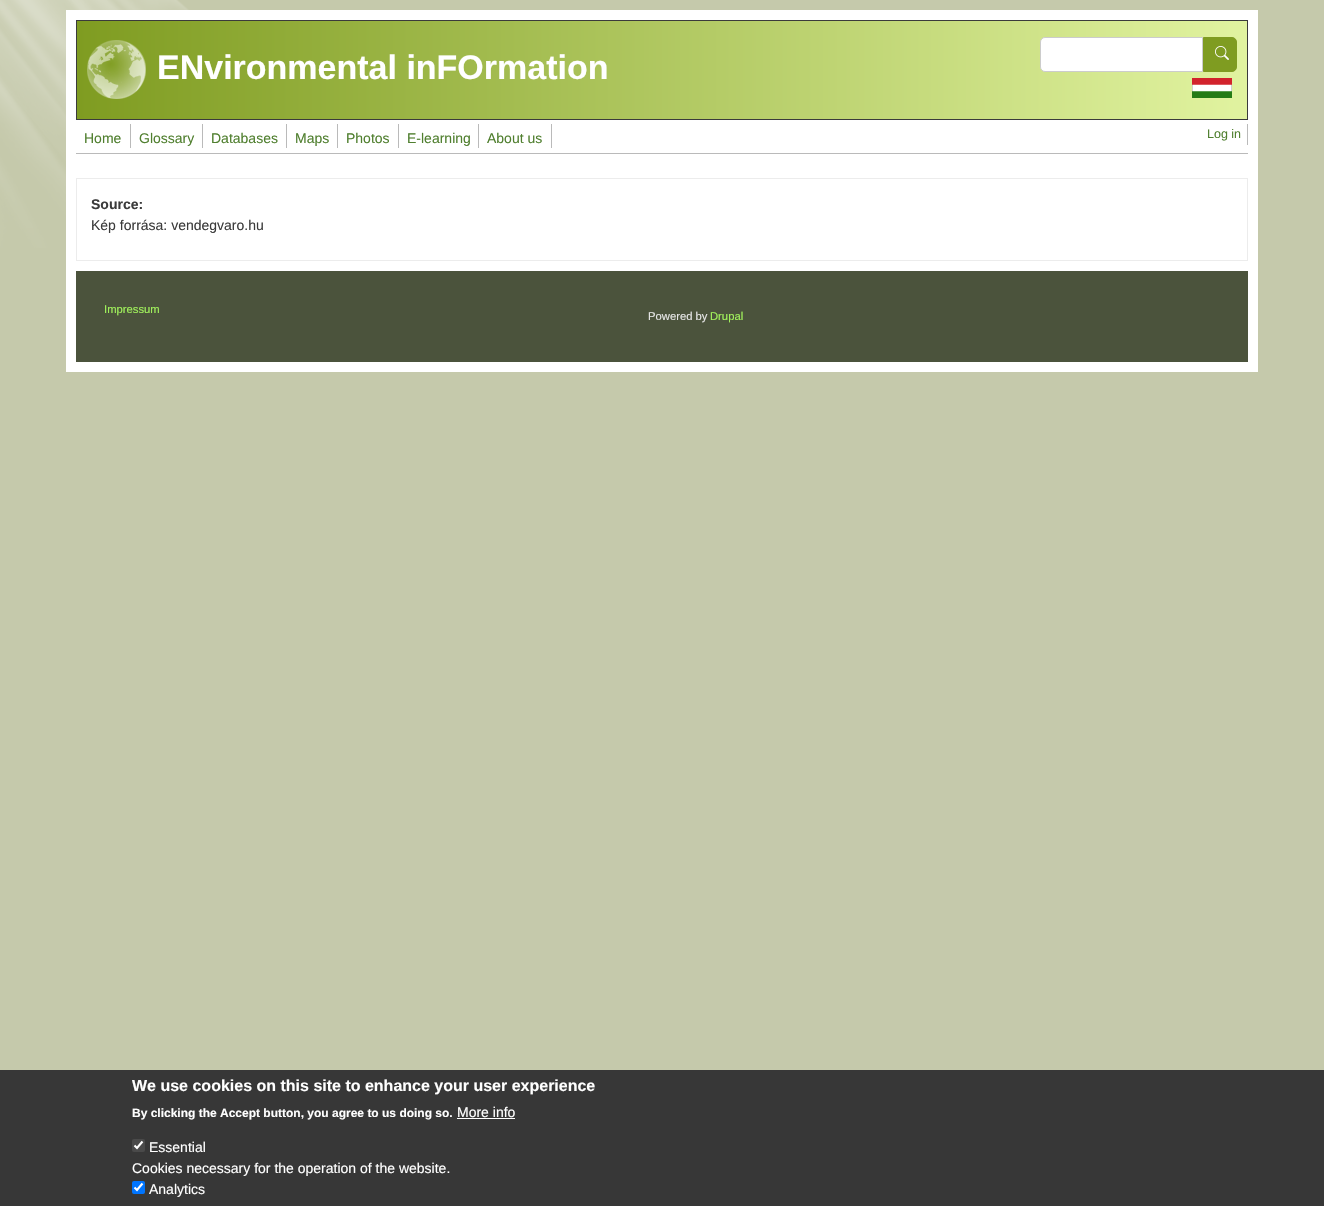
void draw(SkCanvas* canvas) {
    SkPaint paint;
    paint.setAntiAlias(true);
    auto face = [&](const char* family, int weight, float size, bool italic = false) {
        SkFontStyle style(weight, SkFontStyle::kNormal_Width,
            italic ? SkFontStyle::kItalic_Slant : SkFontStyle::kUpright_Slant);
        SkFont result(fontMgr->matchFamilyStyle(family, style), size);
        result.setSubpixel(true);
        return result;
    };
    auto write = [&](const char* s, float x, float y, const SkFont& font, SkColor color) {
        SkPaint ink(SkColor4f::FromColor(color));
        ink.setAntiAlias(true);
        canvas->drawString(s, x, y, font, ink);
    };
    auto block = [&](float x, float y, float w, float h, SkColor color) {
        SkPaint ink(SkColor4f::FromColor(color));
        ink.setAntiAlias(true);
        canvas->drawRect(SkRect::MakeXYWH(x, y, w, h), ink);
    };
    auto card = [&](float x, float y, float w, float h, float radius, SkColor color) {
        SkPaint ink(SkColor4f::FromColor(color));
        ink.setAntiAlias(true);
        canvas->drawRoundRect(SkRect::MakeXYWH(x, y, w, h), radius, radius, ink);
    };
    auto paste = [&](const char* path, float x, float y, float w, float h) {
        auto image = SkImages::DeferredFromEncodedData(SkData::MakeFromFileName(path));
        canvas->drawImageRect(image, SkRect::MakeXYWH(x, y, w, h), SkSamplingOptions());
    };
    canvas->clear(SkColorSetRGB(197, 201, 171));
    paste("pic1.png", 0, 0, 189, 248);
    block(66, 10, 1192, 362, SK_ColorWHITE);
    {
        const SkColor colors[] = {SkColorSetRGB(127, 156, 33), SkColorSetRGB(225, 243, 160)};
        const float stops[] = {0, 1};
        const SkPoint ends[] = {{77, 70}, {1247, 70}};
        paint.setShader(SkGradientShader::MakeLinear(ends, colors, stops, 2, SkTileMode::kClamp));
        paint.setAlpha(255);
    }
    canvas->drawRect(SkRect::MakeXYWH(77, 21, 1170, 98), paint);
    paint.setStyle(SkPaint::kStroke_Style);
    paint.setStrokeWidth(1);
    paint.setShader(nullptr);
    paint.setColor(SkColorSetRGB(59, 59, 59));
    canvas->drawRect(SkRect::MakeXYWH(76.5f, 20.5f, 1171, 99), paint);
    paste("pic2.png", 87, 40, 59, 59);
    auto kFont1 = face("Liberation Sans", 700, 34);
    write("ENvironmental inFOrmation", 157, 79, kFont1, SK_ColorWHITE);
    paint.setStyle(SkPaint::kFill_Style);
    paint.setColor(SK_ColorWHITE);
    canvas->drawPath(SkPathBuilder().moveTo(1045, 37.5f).lineTo(1202.5f, 37.5f).lineTo(1202.5f, 71.5f).lineTo(1045, 71.5f).cubicTo(1042.5f, 71.5f, 1040.5f, 69.5f, 1040.5f, 67).lineTo(1040.5f, 42).cubicTo(1040.5f, 39.5f, 1042.5f, 37.5f, 1045, 37.5f).close().detach(), paint);
    paint.setStyle(SkPaint::kStroke_Style);
    paint.setColor(SkColorSetRGB(204, 204, 204));
    canvas->drawPath(SkPathBuilder().moveTo(1045, 37.5f).lineTo(1202.5f, 37.5f).lineTo(1202.5f, 71.5f).lineTo(1045, 71.5f).cubicTo(1042.5f, 71.5f, 1040.5f, 69.5f, 1040.5f, 67).lineTo(1040.5f, 42).cubicTo(1040.5f, 39.5f, 1042.5f, 37.5f, 1045, 37.5f).close().detach(), paint);
    paint.setStyle(SkPaint::kFill_Style);
    paint.setColor(SkColorSetRGB(127, 156, 33));
    canvas->drawPath(SkPathBuilder().moveTo(1203.5f, 37.5f).lineTo(1232, 37.5f).cubicTo(1234.5f, 37.5f, 1236.5f, 39.5f, 1236.5f, 42).lineTo(1236.5f, 67).cubicTo(1236.5f, 69.5f, 1234.5f, 71.5f, 1232, 71.5f).lineTo(1203.5f, 71.5f).close().detach(), paint);
    paint.setStyle(SkPaint::kStroke_Style);
    canvas->drawPath(SkPathBuilder().moveTo(1203.5f, 37.5f).lineTo(1232, 37.5f).cubicTo(1234.5f, 37.5f, 1236.5f, 39.5f, 1236.5f, 42).lineTo(1236.5f, 67).cubicTo(1236.5f, 69.5f, 1234.5f, 71.5f, 1232, 71.5f).lineTo(1203.5f, 71.5f).close().detach(), paint);
    paste("pic3.png", 1215, 46, 14, 14);
    paste("pic4.png", 1192, 78, 40, 20);
    block(76, 153, 1172, 1, SkColorSetRGB(186, 186, 186));
    block(130, 124, 1, 24, SkColorSetRGB(186, 186, 186));
    auto kFont2 = face("Liberation Sans", 400, 14);
    write("Home", 84, 143, kFont2, SkColorSetRGB(80, 127, 47));
    block(202, 124, 1, 24, SkColorSetRGB(186, 186, 186));
    write("Glossary", 139, 143, kFont2, SkColorSetRGB(80, 127, 47));
    block(286, 124, 1, 24, SkColorSetRGB(186, 186, 186));
    write("Databases", 211, 143, kFont2, SkColorSetRGB(80, 127, 47));
    block(337, 124, 1, 24, SkColorSetRGB(186, 186, 186));
    write("Maps", 295, 143, kFont2, SkColorSetRGB(80, 127, 47));
    block(398, 124, 1, 24, SkColorSetRGB(186, 186, 186));
    write("Photos", 346, 143, kFont2, SkColorSetRGB(80, 127, 47));
    block(478, 124, 1, 24, SkColorSetRGB(186, 186, 186));
    write("E-learning", 407, 143, kFont2, SkColorSetRGB(80, 127, 47));
    block(551, 124, 1, 24, SkColorSetRGB(186, 186, 186));
    write("About us", 487, 143, kFont2, SkColorSetRGB(80, 127, 47));
    block(1247, 124, 1, 21, SkColorSetRGB(186, 186, 186));
    auto kFont3 = face("Liberation Sans", 400, 12.5f);
    write("Log in", 1207, 138, kFont3, SkColorSetRGB(80, 127, 47));
    paint.setColor(SkColorSetRGB(236, 236, 236));
    canvas->drawRect(SkRect::MakeXYWH(76.5f, 178.5f, 1171, 82), paint);
    auto kFont4 = face("Liberation Sans", 700, 14);
    write("Source:", 91, 209, kFont4, SkColorSetRGB(59, 59, 59));
    write("Kép forrása: vendegvaro.hu", 91, 230, kFont2, SkColorSetRGB(59, 59, 59));
    block(76, 271, 1172, 91, SkColorSetRGB(75, 83, 60));
    auto kFont5 = face("Liberation Sans", 400, 11.25f);
    write("Impressum", 104, 313, kFont5, SkColorSetRGB(160, 241, 91));
    write("Powered by", 648, 320, kFont5, SkColorSetRGB(230, 230, 230));
    write("Drupal", 710, 320, kFont5, SkColorSetRGB(160, 241, 91));
    block(0, 1070, 1324, 136, SkColorSetRGB(55, 55, 55));
    auto kFont6 = face("Liberation Sans", 700, 16);
    write("We use cookies on this site to enhance your user experience", 132, 1091, kFont6, SK_ColorWHITE);
    auto kFont7 = face("Liberation Sans", 700, 12);
    write("By clicking the Accept button, you agree to us doing so.", 132, 1117, kFont7, SK_ColorWHITE);
    write("More info", 457, 1117, kFont2, SK_ColorWHITE);
    block(457, 1118, 58, 1, SK_ColorWHITE);
    card(132, 1139, 13, 13, 2, SkColorSetRGB(74, 74, 74));
    paint.setStrokeWidth(2.1f);
    paint.setColor(SK_ColorWHITE);
    canvas->drawPath(SkPathBuilder().moveTo(134.5f, 1145.5f).lineTo(137, 1148).lineTo(142.5f, 1141.5f).detach(), paint);
    write("Essential", 149, 1152, kFont2, SK_ColorWHITE);
    write("Cookies necessary for the operation of the website.", 132, 1173, kFont2, SK_ColorWHITE);
    card(132, 1181, 13, 13, 2, SkColorSetRGB(0, 117, 255));
    canvas->drawPath(SkPathBuilder().moveTo(134.5f, 1187.5f).lineTo(137, 1190).lineTo(142.5f, 1183.5f).detach(), paint);
    write("Analytics", 149, 1194, kFont2, SK_ColorWHITE);
}
